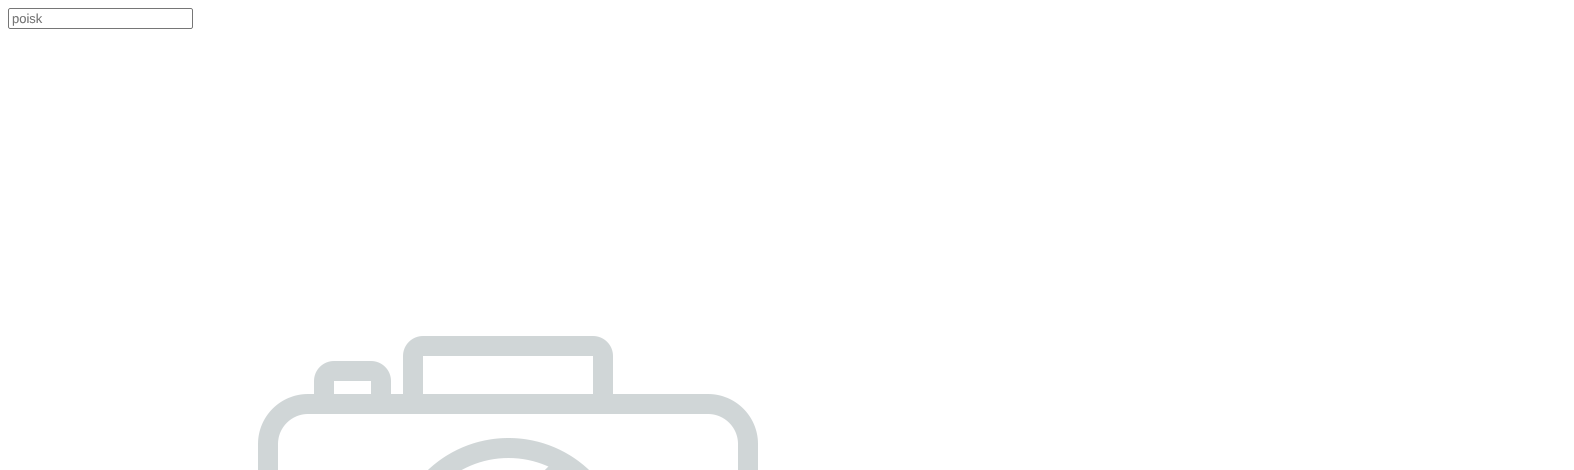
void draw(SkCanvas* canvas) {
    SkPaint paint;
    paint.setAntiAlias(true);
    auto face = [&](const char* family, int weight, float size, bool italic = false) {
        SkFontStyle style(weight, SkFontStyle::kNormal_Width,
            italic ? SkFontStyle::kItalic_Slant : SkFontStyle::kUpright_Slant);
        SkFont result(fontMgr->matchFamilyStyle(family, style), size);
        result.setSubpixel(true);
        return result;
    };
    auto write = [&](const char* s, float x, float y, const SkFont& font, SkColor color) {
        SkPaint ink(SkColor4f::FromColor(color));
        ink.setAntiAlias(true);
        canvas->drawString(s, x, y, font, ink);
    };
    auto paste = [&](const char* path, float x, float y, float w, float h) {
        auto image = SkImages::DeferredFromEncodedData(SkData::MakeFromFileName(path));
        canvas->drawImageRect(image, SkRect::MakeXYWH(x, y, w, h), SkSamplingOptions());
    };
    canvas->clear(SK_ColorWHITE);
    paint.setStyle(SkPaint::kStroke_Style);
    paint.setStrokeWidth(1);
    paint.setColor(SkColorSetRGB(118, 118, 118));
    canvas->drawRoundRect(SkRect::MakeXYWH(8.5f, 8.5f, 184, 20), 1.5f, 1.5f, paint);
    auto kFont1 = face("Liberation Sans", 400, 13);
    write("poisk", 12, 23, kFont1, SkColorSetRGB(117, 117, 117));
    paste("pic1.png", 258, 336, 500, 134);
}
